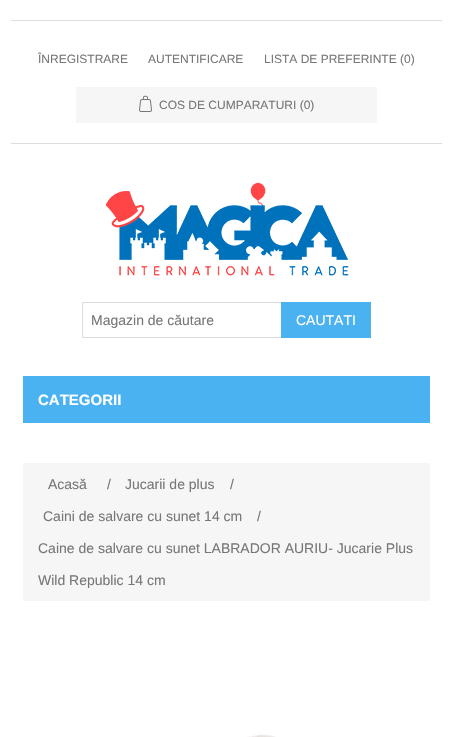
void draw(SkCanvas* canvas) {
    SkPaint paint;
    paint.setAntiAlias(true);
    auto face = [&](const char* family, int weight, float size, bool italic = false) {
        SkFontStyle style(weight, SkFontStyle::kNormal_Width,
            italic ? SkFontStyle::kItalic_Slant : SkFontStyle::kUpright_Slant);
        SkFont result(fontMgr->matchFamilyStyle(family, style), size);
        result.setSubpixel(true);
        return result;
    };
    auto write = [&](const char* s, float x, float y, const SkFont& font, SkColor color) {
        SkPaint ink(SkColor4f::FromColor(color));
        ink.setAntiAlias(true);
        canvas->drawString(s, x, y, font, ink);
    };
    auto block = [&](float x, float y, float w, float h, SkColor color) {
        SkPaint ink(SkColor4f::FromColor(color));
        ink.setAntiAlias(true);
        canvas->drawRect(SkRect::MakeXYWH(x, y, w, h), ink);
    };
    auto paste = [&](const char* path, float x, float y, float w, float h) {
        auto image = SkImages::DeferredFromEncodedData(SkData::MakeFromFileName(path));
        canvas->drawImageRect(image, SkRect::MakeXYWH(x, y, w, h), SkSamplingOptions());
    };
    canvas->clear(SK_ColorWHITE);
    block(11, 143, 431, 1, SkColorSetRGB(221, 221, 221));
    block(11, 20, 431, 1, SkColorSetRGB(221, 221, 221));
    auto kFont1 = face("Liberation Sans", 400, 12);
    write("ÎNREGISTRARE", 38, 63, kFont1, SkColorSetRGB(119, 119, 119));
    write("AUTENTIFICARE", 148, 63, kFont1, SkColorSetRGB(119, 119, 119));
    write("LISTA DE PREFERINTE (0)", 264, 63, kFont1, SkColorSetRGB(119, 119, 119));
    block(76, 87, 301, 36, SkColorSetRGB(246, 246, 246));
    paste("pic1.png", 139, 95, 13, 17);
    write("COS DE CUMPARATURI (0)", 159, 109, kFont1, SkColorSetRGB(119, 119, 119));
    paste("pic2.png", 106, 182, 243, 94);
    paint.setStyle(SkPaint::kStroke_Style);
    paint.setStrokeWidth(1);
    paint.setColor(SkColorSetRGB(221, 221, 221));
    canvas->drawRect(SkRect::MakeXYWH(82.5f, 302.5f, 199, 35), paint);
    auto kFont2 = face("Liberation Sans", 400, 14);
    write("Magazin de căutare", 91, 325, kFont2, SkColorSetRGB(119, 119, 119));
    block(281, 302, 90, 36, SkColorSetRGB(74, 178, 241));
    write("CAUTATI", 296, 325, kFont2, SK_ColorWHITE);
    block(23, 376, 407, 47, SkColorSetRGB(74, 178, 241));
    auto kFont3 = face("Liberation Sans", 700, 15);
    write("CATEGORII", 38, 405, kFont3, SK_ColorWHITE);
    block(23, 463, 407, 138, SkColorSetRGB(246, 246, 246));
    write("Acasă", 48, 489, kFont2, SkColorSetRGB(119, 119, 119));
    write("/", 107, 489, kFont2, SkColorSetRGB(119, 119, 119));
    write("Jucarii de plus", 125, 489, kFont2, SkColorSetRGB(119, 119, 119));
    write("/", 230, 489, kFont2, SkColorSetRGB(119, 119, 119));
    write("Caini de salvare cu sunet 14 cm", 43, 521, kFont2, SkColorSetRGB(119, 119, 119));
    write("/", 257, 521, kFont2, SkColorSetRGB(119, 119, 119));
    write("Caine de salvare cu sunet LABRADOR AURIU- Jucarie Plus", 38, 553, kFont2, SkColorSetRGB(119, 119, 119));
    write("Wild Republic 14 cm", 38, 585, kFont2, SkColorSetRGB(119, 119, 119));
    paste("pic3.png", 247, 734, 29, 3);
}
